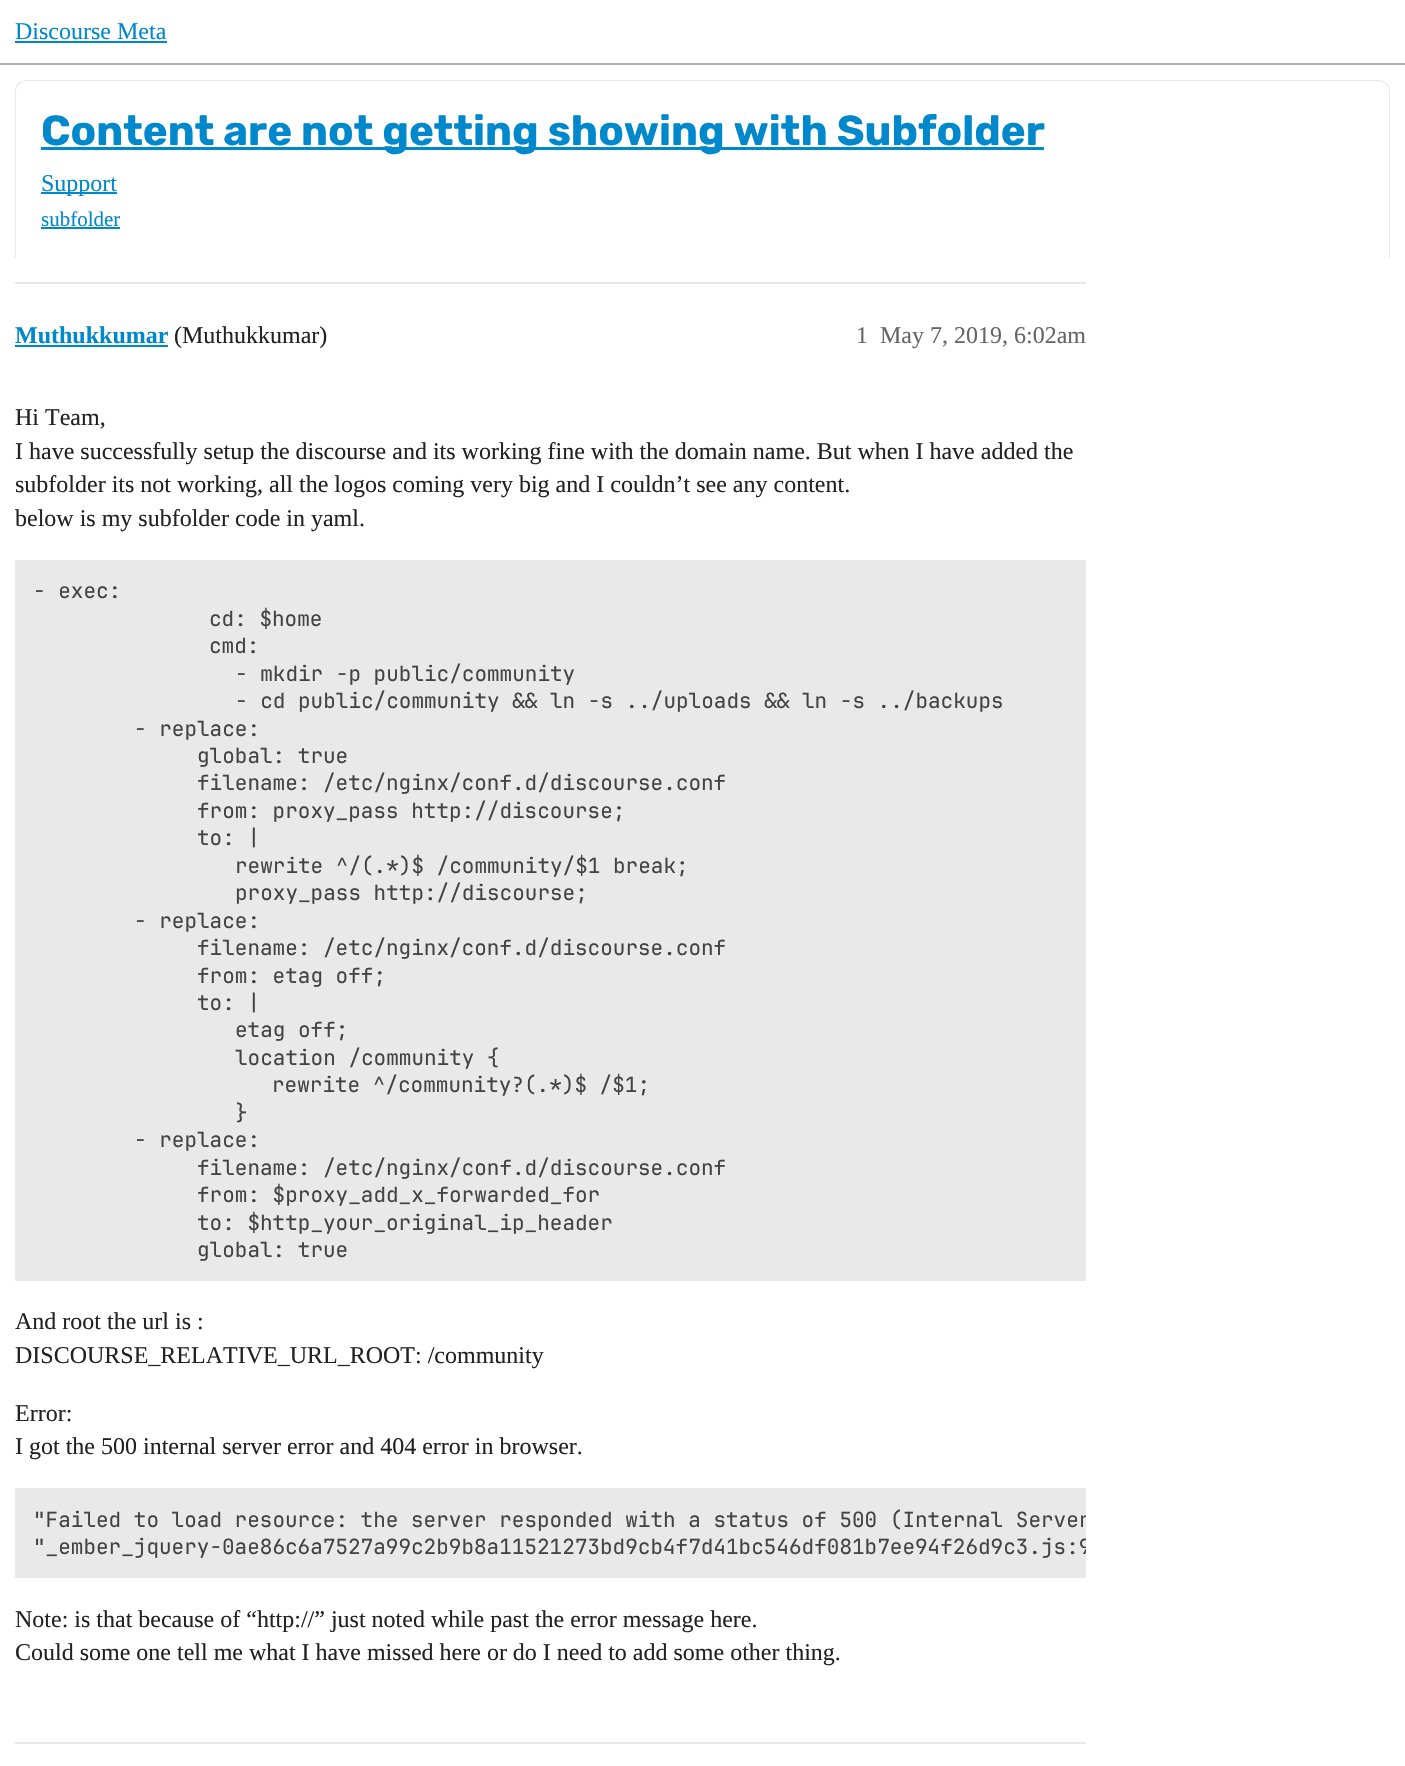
void draw(SkCanvas* canvas) {
    SkPaint paint;
    paint.setAntiAlias(true);
    auto face = [&](const char* family, int weight, float size, bool italic = false) {
        SkFontStyle style(weight, SkFontStyle::kNormal_Width,
            italic ? SkFontStyle::kItalic_Slant : SkFontStyle::kUpright_Slant);
        SkFont result(fontMgr->matchFamilyStyle(family, style), size);
        result.setSubpixel(true);
        return result;
    };
    auto write = [&](const char* s, float x, float y, const SkFont& font, SkColor color) {
        SkPaint ink(SkColor4f::FromColor(color));
        ink.setAntiAlias(true);
        canvas->drawString(s, x, y, font, ink);
    };
    auto block = [&](float x, float y, float w, float h, SkColor color) {
        SkPaint ink(SkColor4f::FromColor(color));
        ink.setAntiAlias(true);
        canvas->drawRect(SkRect::MakeXYWH(x, y, w, h), ink);
    };
    canvas->clear(SK_ColorWHITE);
    block(0, 63, 1405, 2, SkColorSetRGB(175, 175, 175));
    auto kFont1 = face("Liberation Serif", 400, 24);
    write("Discourse Meta", 15, 39, kFont1, SkColorSetRGB(0, 136, 204));
    block(15, 41, 152, 2, SkColorSetRGB(0, 136, 204));
    paint.setColor(SkColorSetRGB(233, 233, 233));
    canvas->drawPath(SkPathBuilder(SkPathFillType::kEvenOdd).moveTo(27, 80).lineTo(1378, 80).cubicTo(1385, 80, 1390, 85, 1390, 92).lineTo(1390, 258).lineTo(15, 258).lineTo(15, 92).cubicTo(15, 85, 20, 80, 27, 80).close().moveTo(27, 81).lineTo(1378, 81).cubicTo(1384, 81, 1389, 86, 1389, 92).lineTo(1389, 258).lineTo(16, 258).lineTo(16, 92).cubicTo(16, 86, 21, 81, 27, 81).close().detach(), paint);
    block(41, 147, 1003, 3, SkColorSetRGB(0, 136, 204));
    auto kFont2 = face("Rubik", 700, 42);
    write("Content are not getting showing with Subfolder", 41, 145, kFont2, SkColorSetRGB(0, 136, 204));
    block(41, 192, 76, 2, SkColorSetRGB(0, 136, 204));
    write("Support", 41, 191, kFont1, SkColorSetRGB(0, 136, 204));
    auto kFont3 = face("Liberation Serif", 400, 21);
    write("subfolder", 41, 226, kFont3, SkColorSetRGB(0, 136, 204));
    block(41, 227, 79, 2, SkColorSetRGB(0, 136, 204));
    block(15, 282, 1071, 2, SkColorSetRGB(233, 233, 233));
    auto kFont4 = face("Liberation Serif", 700, 24);
    write("Muthukkumar", 15, 343, kFont4, SkColorSetRGB(0, 136, 204));
    block(15, 345, 153, 2, SkColorSetRGB(0, 136, 204));
    write("(Muthukkumar)", 174, 343, kFont1, SkColorSetRGB(34, 34, 34));
    write("1", 856, 343, kFont1, SkColorSetRGB(102, 102, 102));
    write("May 7, 2019, 6:02am", 880, 343, kFont1, SkColorSetRGB(102, 102, 102));
    write("Hi Team,", 15, 425, kFont1, SkColorSetRGB(34, 34, 34));
    write("I have successfully setup the discourse and its working fine with the domain name. But when I have added the", 15, 459, kFont1, SkColorSetRGB(34, 34, 34));
    write("subfolder its not working, all the logos coming very big and I couldn’t see any content.", 15, 492, kFont1, SkColorSetRGB(34, 34, 34));
    write("below is my subfolder code in yaml.", 15, 526, kFont1, SkColorSetRGB(34, 34, 34));
    block(15, 560, 1071, 721, SkColorSetRGB(233, 233, 233));
    auto kFont5 = face("JetBrains Mono", 400, 21);
    write("- exec:", 33, 598, kFont5, SkColorSetRGB(67, 67, 67));
    write("cd: $home", 209, 626, kFont5, SkColorSetRGB(67, 67, 67));
    write("cmd:", 209, 653, kFont5, SkColorSetRGB(67, 67, 67));
    write("- mkdir -p public/community", 235, 681, kFont5, SkColorSetRGB(67, 67, 67));
    write("- cd public/community && ln -s ../uploads && ln -s ../backups", 235, 708, kFont5, SkColorSetRGB(67, 67, 67));
    write("- replace:", 134, 736, kFont5, SkColorSetRGB(67, 67, 67));
    write("global: true", 197, 763, kFont5, SkColorSetRGB(67, 67, 67));
    write("filename: /etc/nginx/conf.d/discourse.conf", 197, 790, kFont5, SkColorSetRGB(67, 67, 67));
    write("from: proxy_pass http://discourse;", 197, 818, kFont5, SkColorSetRGB(67, 67, 67));
    write("to: |", 197, 845, kFont5, SkColorSetRGB(67, 67, 67));
    write("rewrite ^/(.*)$ /community/$1 break;", 235, 873, kFont5, SkColorSetRGB(67, 67, 67));
    write("proxy_pass http://discourse;", 235, 900, kFont5, SkColorSetRGB(67, 67, 67));
    write("- replace:", 134, 928, kFont5, SkColorSetRGB(67, 67, 67));
    write("filename: /etc/nginx/conf.d/discourse.conf", 197, 955, kFont5, SkColorSetRGB(67, 67, 67));
    write("from: etag off;", 197, 983, kFont5, SkColorSetRGB(67, 67, 67));
    write("to: |", 197, 1010, kFont5, SkColorSetRGB(67, 67, 67));
    write("etag off;", 235, 1037, kFont5, SkColorSetRGB(67, 67, 67));
    write("location /community {", 235, 1065, kFont5, SkColorSetRGB(67, 67, 67));
    write("rewrite ^/community?(.*)$ /$1;", 272, 1092, kFont5, SkColorSetRGB(67, 67, 67));
    write("}", 235, 1120, kFont5, SkColorSetRGB(67, 67, 67));
    write("- replace:", 134, 1147, kFont5, SkColorSetRGB(67, 67, 67));
    write("filename: /etc/nginx/conf.d/discourse.conf", 197, 1175, kFont5, SkColorSetRGB(67, 67, 67));
    write("from: $proxy_add_x_forwarded_for", 197, 1202, kFont5, SkColorSetRGB(67, 67, 67));
    write("to: $http_your_original_ip_header", 197, 1230, kFont5, SkColorSetRGB(67, 67, 67));
    write("global: true", 197, 1257, kFont5, SkColorSetRGB(67, 67, 67));
    write("And root the url is :", 15, 1329, kFont1, SkColorSetRGB(34, 34, 34));
    write("DISCOURSE_RELATIVE_URL_ROOT: /community", 15, 1363, kFont1, SkColorSetRGB(34, 34, 34));
    write("Error:", 15, 1421, kFont1, SkColorSetRGB(34, 34, 34));
    write("I got the 500 internal server error and 404 error in browser.", 15, 1454, kFont1, SkColorSetRGB(34, 34, 34));
    block(15, 1488, 1071, 90, SkColorSetRGB(233, 233, 233));
    canvas->save();
    canvas->clipPath(SkPathBuilder().moveTo(27, 1488).lineTo(1074, 1488).cubicTo(1080.5f, 1488, 1086, 1493.5f, 1086, 1500).lineTo(1086, 1566).cubicTo(1086, 1572.5f, 1080.5f, 1578, 1074, 1578).lineTo(27, 1578).cubicTo(20.5f, 1578, 15, 1572.5f, 15, 1566).lineTo(15, 1500).cubicTo(15, 1493.5f, 20.5f, 1488, 27, 1488).close().detach(), true);
    write("\"Failed to load resource: the server responded with a status of 500 (Internal Server", 33, 1527, kFont5, SkColorSetRGB(67, 67, 67));
    write("\"_ember_jquery-0ae86c6a7527a99c2b9b8a11521273bd9cb4f7d41bc546df081b7ee94f26d9c3.js:9", 33, 1554, kFont5, SkColorSetRGB(67, 67, 67));
    canvas->restore();
    write("Note: is that because of “http://” just noted while past the error message here.", 15, 1627, kFont1, SkColorSetRGB(34, 34, 34));
    write("Could some one tell me what I have missed here or do I need to add some other thing.", 15, 1660, kFont1, SkColorSetRGB(34, 34, 34));
    block(15, 1742, 1071, 2, SkColorSetRGB(233, 233, 233));
}
